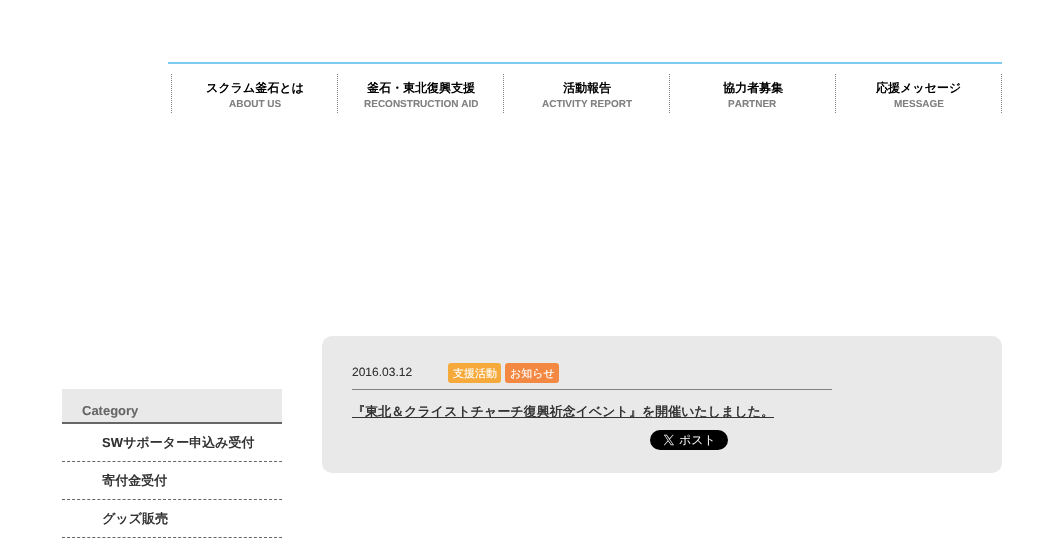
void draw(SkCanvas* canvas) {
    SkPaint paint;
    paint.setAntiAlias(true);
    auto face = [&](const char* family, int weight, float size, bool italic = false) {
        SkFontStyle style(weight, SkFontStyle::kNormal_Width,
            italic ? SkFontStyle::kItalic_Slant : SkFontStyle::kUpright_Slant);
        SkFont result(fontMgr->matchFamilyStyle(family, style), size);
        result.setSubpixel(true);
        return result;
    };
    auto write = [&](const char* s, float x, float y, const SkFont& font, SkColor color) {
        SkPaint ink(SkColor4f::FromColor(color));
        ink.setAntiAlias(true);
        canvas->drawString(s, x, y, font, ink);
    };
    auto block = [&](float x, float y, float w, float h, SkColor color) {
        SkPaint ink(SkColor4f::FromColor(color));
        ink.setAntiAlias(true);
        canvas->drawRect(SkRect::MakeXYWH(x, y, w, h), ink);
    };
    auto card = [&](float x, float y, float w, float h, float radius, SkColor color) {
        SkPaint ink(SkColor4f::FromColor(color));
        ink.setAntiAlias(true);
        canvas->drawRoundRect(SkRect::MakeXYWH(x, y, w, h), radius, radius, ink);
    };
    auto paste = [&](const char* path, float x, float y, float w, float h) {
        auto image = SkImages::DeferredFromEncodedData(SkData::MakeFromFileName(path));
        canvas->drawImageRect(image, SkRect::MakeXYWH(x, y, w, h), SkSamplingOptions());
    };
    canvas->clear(SK_ColorWHITE);
    block(168, 62, 834, 2, SkColorSetRGB(128, 204, 241));
    paint.setStyle(SkPaint::kStroke_Style);
    paint.setStrokeWidth(1);
    paint.setColor(SkColorSetRGB(131, 131, 131));
    paint.setPathEffect(SkDashPathEffect::Make({{1, 1}}, 0));
    canvas->drawPath(SkPathBuilder().moveTo(171.5f, 74).lineTo(171.5f, 114).detach(), paint);
    paint.setPathEffect(nullptr);
    auto kFont1 = face("WenQuanYi Zen Hei", 700, 12);
    write("スクラム釜石とは", 206, 92, kFont1, SK_ColorBLACK);
    auto kFont2 = face("Liberation Sans", 700, 10);
    write("ABOUT US", 229, 107, kFont2, SkColorSetRGB(128, 128, 128));
    paint.setPathEffect(SkDashPathEffect::Make({{1, 1}}, 0));
    canvas->drawPath(SkPathBuilder().moveTo(337.5f, 74).lineTo(337.5f, 114).detach(), paint);
    paint.setPathEffect(nullptr);
    write("釜石・東北復興支援", 367, 92, kFont1, SK_ColorBLACK);
    write("RECONSTRUCTION AID", 364, 107, kFont2, SkColorSetRGB(128, 128, 128));
    paint.setPathEffect(SkDashPathEffect::Make({{1, 1}}, 0));
    canvas->drawPath(SkPathBuilder().moveTo(503.5f, 74).lineTo(503.5f, 114).detach(), paint);
    paint.setPathEffect(nullptr);
    write("活動報告", 563, 92, kFont1, SK_ColorBLACK);
    write("ACTIVITY REPORT", 542, 107, kFont2, SkColorSetRGB(128, 128, 128));
    paint.setPathEffect(SkDashPathEffect::Make({{1, 1}}, 0));
    canvas->drawPath(SkPathBuilder().moveTo(669.5f, 74).lineTo(669.5f, 114).detach(), paint);
    paint.setPathEffect(nullptr);
    write("協力者募集", 723, 92, kFont1, SK_ColorBLACK);
    write("PARTNER", 728, 107, kFont2, SkColorSetRGB(128, 128, 128));
    paint.setPathEffect(SkDashPathEffect::Make({{1, 1}}, 0));
    canvas->drawPath(SkPathBuilder().moveTo(1001.5f, 74).lineTo(1001.5f, 114).detach(), paint);
    paint.setPathEffect(nullptr);
    paint.setPathEffect(SkDashPathEffect::Make({{1, 1}}, 0));
    canvas->drawPath(SkPathBuilder().moveTo(835.5f, 74).lineTo(835.5f, 114).detach(), paint);
    paint.setPathEffect(nullptr);
    write("応援メッセージ", 876, 92, kFont1, SK_ColorBLACK);
    write("MESSAGE", 894, 107, kFont2, SkColorSetRGB(128, 128, 128));
    card(322, 336, 680, 137, 10, SkColorSetRGB(233, 233, 233));
    block(352, 389, 480, 1, SkColorSetRGB(131, 131, 131));
    auto kFont3 = face("Liberation Sans", 400, 12);
    write("2016.03.12", 352, 376, kFont3, SkColorSetRGB(51, 51, 51));
    card(448, 363, 53, 20, 3, SkColorSetRGB(245, 170, 59));
    auto kFont4 = face("WenQuanYi Zen Hei", 500, 11);
    write("支援活動", 453, 377, kFont4, SK_ColorWHITE);
    card(505, 363, 54, 20, 3, SkColorSetRGB(243, 136, 66));
    write("お知らせ", 510, 377, kFont4, SK_ColorWHITE);
    block(352, 417, 422, 1, SkColorSetRGB(51, 51, 51));
    auto kFont5 = face("WenQuanYi Zen Hei", 700, 13);
    write("『東北＆クライストチャーチ復興祈念イベント』を開催いたしました。", 352, 416, kFont5, SkColorSetRGB(51, 51, 51));
    paste("pic1.png", 650, 430, 78, 20);
    block(62, 389, 220, 33, SkColorSetRGB(233, 233, 233));
    block(62, 422, 220, 2, SkColorSetRGB(102, 102, 102));
    auto kFont6 = face("Liberation Sans", 700, 13);
    write("Category", 82, 415, kFont6, SkColorSetRGB(102, 102, 102));
    paint.setColor(SkColorSetRGB(102, 102, 102));
    paint.setPathEffect(SkDashPathEffect::Make({{3, 2.05f}}, 0));
    canvas->drawPath(SkPathBuilder().moveTo(62, 461.5f).lineTo(282, 461.5f).detach(), paint);
    paint.setPathEffect(nullptr);
    write("SW", 102, 447, kFont6, SkColorSetRGB(51, 51, 51));
    write("サポーター申込み受付", 123, 447, kFont5, SkColorSetRGB(51, 51, 51));
    paint.setPathEffect(SkDashPathEffect::Make({{3, 2.05f}}, 0));
    canvas->drawPath(SkPathBuilder().moveTo(62, 499.5f).lineTo(282, 499.5f).detach(), paint);
    paint.setPathEffect(nullptr);
    write("寄付金受付", 102, 485, kFont5, SkColorSetRGB(51, 51, 51));
    paint.setPathEffect(SkDashPathEffect::Make({{3, 2.05f}}, 0));
    canvas->drawPath(SkPathBuilder().moveTo(62, 537.5f).lineTo(282, 537.5f).detach(), paint);
    paint.setPathEffect(nullptr);
    write("グッズ販売", 102, 523, kFont5, SkColorSetRGB(51, 51, 51));
}
